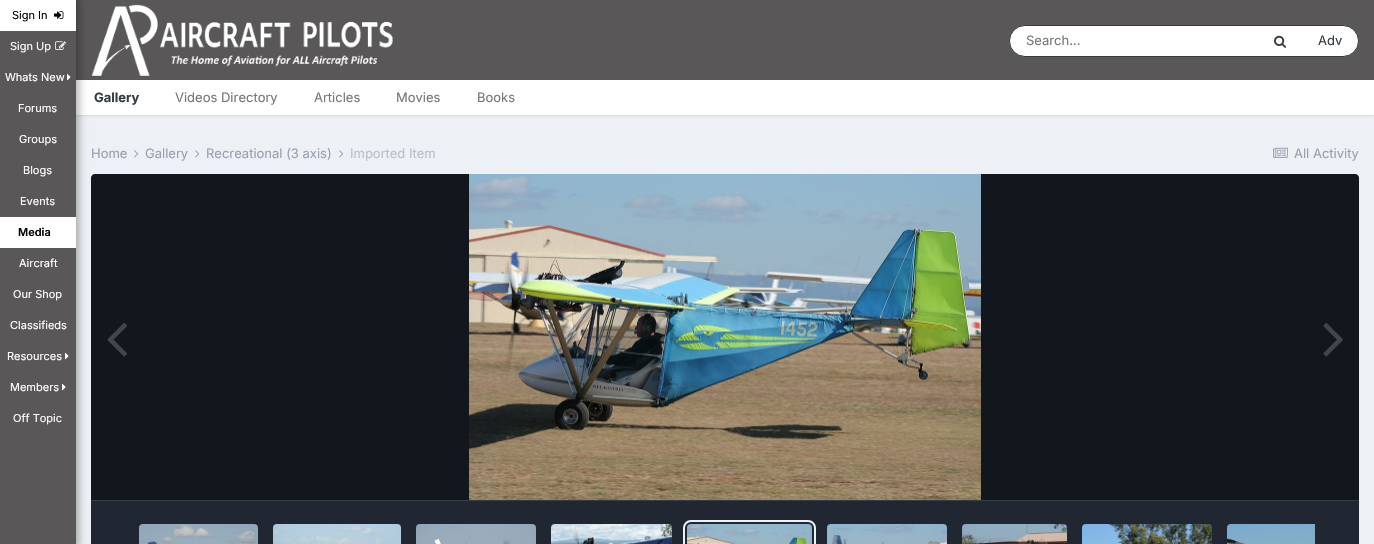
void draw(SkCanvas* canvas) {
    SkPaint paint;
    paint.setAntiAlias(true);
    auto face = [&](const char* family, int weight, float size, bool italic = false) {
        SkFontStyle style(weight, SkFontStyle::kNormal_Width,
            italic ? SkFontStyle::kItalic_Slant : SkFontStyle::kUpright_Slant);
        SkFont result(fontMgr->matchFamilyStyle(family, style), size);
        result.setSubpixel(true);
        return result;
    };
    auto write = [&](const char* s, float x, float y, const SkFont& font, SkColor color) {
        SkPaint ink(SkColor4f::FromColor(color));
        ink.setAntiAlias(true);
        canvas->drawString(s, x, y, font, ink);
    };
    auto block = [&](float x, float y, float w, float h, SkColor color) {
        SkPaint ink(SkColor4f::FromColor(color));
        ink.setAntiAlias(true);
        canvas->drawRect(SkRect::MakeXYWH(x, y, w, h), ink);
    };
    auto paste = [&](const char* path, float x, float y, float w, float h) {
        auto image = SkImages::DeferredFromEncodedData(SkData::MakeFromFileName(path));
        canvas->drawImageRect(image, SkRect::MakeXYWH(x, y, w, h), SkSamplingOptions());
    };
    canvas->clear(SkColorSetRGB(237, 240, 244));
    block(76, 0, 1298, 80, SkColorSetRGB(89, 87, 88));
    paste("pic4.png", 91, 4, 302, 72);
    paint.setColor(SkColorSetARGB(26, 0, 0, 0));
    paint.setMaskFilter(SkMaskFilter::MakeBlur(kNormal_SkBlurStyle, 1));
    canvas->drawRect(SkRect::MakeXYWH(76, 81, 1298, 35), paint);
    paint.setMaskFilter(nullptr);
    block(76, 80, 1298, 35, SK_ColorWHITE);
    paint.setColor(SkColorSetRGB(45, 55, 72));
    canvas->drawPath(SkPathBuilder().moveTo(95, 174).lineTo(1355, 174).cubicTo(1357, 174, 1359, 176, 1359, 178).lineTo(1359, 500).lineTo(91, 500).lineTo(91, 178).cubicTo(91, 176, 93, 174, 95, 174).close().detach(), paint);
    paint.setColor(SkColorSetARGB(153, 0, 0, 0));
    canvas->drawPath(SkPathBuilder().moveTo(95, 174).lineTo(1355, 174).cubicTo(1357, 174, 1359, 176, 1359, 178).lineTo(1359, 500).lineTo(91, 500).lineTo(91, 178).cubicTo(91, 176, 93, 174, 95, 174).close().detach(), paint);
    block(91, 501, 1268, 43, SkColorSetRGB(32, 39, 50));
    block(91, 500, 1268, 1, SkColorSetRGB(54, 61, 71));
    paint.setColor(SkColorSetARGB(77, 0, 0, 0));
    paint.setMaskFilter(SkMaskFilter::MakeBlur(kNormal_SkBlurStyle, 4));
    canvas->drawRect(SkRect::MakeXYWH(-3, -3, 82, 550), paint);
    paint.setMaskFilter(nullptr);
    block(0, 31, 76, 513, SkColorSetRGB(89, 87, 88));
    block(0, 0, 76, 31, SK_ColorWHITE);
    auto kFont1 = face("Inter", 400, 11);
    write("Sign In", 12, 19, kFont1, SK_ColorBLACK);
    paste("pic1.png", 54, 11, 10, 8);
    write("Sign Up", 10, 50, kFont1, SK_ColorWHITE);
    paste("pic2.png", 55, 41, 11, 9);
    write("Whats New", 5, 81, kFont1, SK_ColorWHITE);
    paste("pic3.png", 67, 74, 4, 7);
    write("Forums", 18, 112, kFont1, SK_ColorWHITE);
    write("Groups", 19, 143, kFont1, SK_ColorWHITE);
    write("Blogs", 23, 174, kFont1, SK_ColorWHITE);
    write("Events", 20, 205, kFont1, SK_ColorWHITE);
    block(0, 217, 76, 31, SK_ColorWHITE);
    auto kFont2 = face("Inter", 600, 11);
    write("Media", 18, 236, kFont2, SK_ColorBLACK);
    write("Aircraft", 19, 267, kFont1, SK_ColorWHITE);
    write("Our Shop", 13, 298, kFont1, SK_ColorWHITE);
    write("Classifieds", 10, 329, kFont1, SK_ColorWHITE);
    write("Resources", 7, 360, kFont1, SK_ColorWHITE);
    paste("pic3.png", 65, 353, 4, 7);
    write("Members", 10, 391, kFont1, SK_ColorWHITE);
    paste("pic3.png", 62, 384, 4, 7);
    write("Off Topic", 13, 422, kFont1, SK_ColorWHITE);
    paint.setColor(SK_ColorWHITE);
    canvas->drawRoundRect(SkRect::MakeXYWH(1009.5f, 25.5f, 349, 31), 15.5f, 15.5f, paint);
    paint.setStyle(SkPaint::kStroke_Style);
    paint.setStrokeWidth(1);
    paint.setColor(SkColorSetRGB(53, 60, 65));
    canvas->drawRoundRect(SkRect::MakeXYWH(1009.5f, 25.5f, 349, 31), 15.5f, 15.5f, paint);
    auto kFont3 = face("Inter", 400, 13);
    write("Search...", 1026, 45, kFont3, SkColorSetRGB(114, 119, 122));
    paste("pic5.png", 1274, 35, 12, 13);
    write("Adv", 1318, 45, kFont3, SkColorSetRGB(53, 60, 65));
    auto kFont4 = face("Inter", 700, 13);
    write("Gallery", 94, 102, kFont4, SkColorSetRGB(53, 60, 65));
    write("Videos Directory", 175, 102, kFont3, SkColorSetRGB(114, 119, 122));
    write("Articles", 314, 102, kFont3, SkColorSetRGB(114, 119, 122));
    write("Movies", 396, 102, kFont3, SkColorSetRGB(114, 119, 122));
    write("Books", 477, 102, kFont3, SkColorSetRGB(114, 119, 122));
    write("Home", 91, 158, kFont3, SkColorSetRGB(150, 162, 178));
    paste("pic6.png", 134, 150, 5, 8);
    write("Gallery", 145, 158, kFont3, SkColorSetRGB(150, 162, 178));
    paste("pic6.png", 195, 150, 5, 8);
    write("Recreational (3 axis)", 206, 158, kFont3, SkColorSetRGB(150, 162, 178));
    paste("pic6.png", 339, 150, 5, 8);
    write("Imported Item", 350, 158, kFont3, SkColorSetRGB(185, 193, 205));
    paste("pic7.png", 1273, 147, 15, 11);
    write("All Activity", 1294, 158, kFont3, SkColorSetRGB(150, 162, 178));
    paste("pic8.png", 469, 174, 512, 326);
    paste("pic9.png", 107, 323, 20, 34);
    paste("pic10.png", 1323, 323, 20, 34);
    paste("pic11.png", 139, 524, 119, 20);
    paste("pic12.png", 273, 524, 128, 20);
    paste("pic13.png", 416, 524, 120, 20);
    paste("pic14.png", 551, 524, 121, 20);
    paint.setStrokeWidth(2);
    paint.setColor(SkColorSetRGB(237, 242, 247));
    canvas->drawRoundRect(SkRect::MakeXYWH(684, 521, 131, 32), 7, 7, paint);
    paste("pic15.png", 687, 524, 125, 20);
    paste("pic16.png", 827, 524, 120, 20);
    paste("pic17.png", 962, 524, 105, 20);
    paste("pic18.png", 1082, 524, 130, 20);
    paste("pic19.png", 1227, 524, 88, 20);
}
